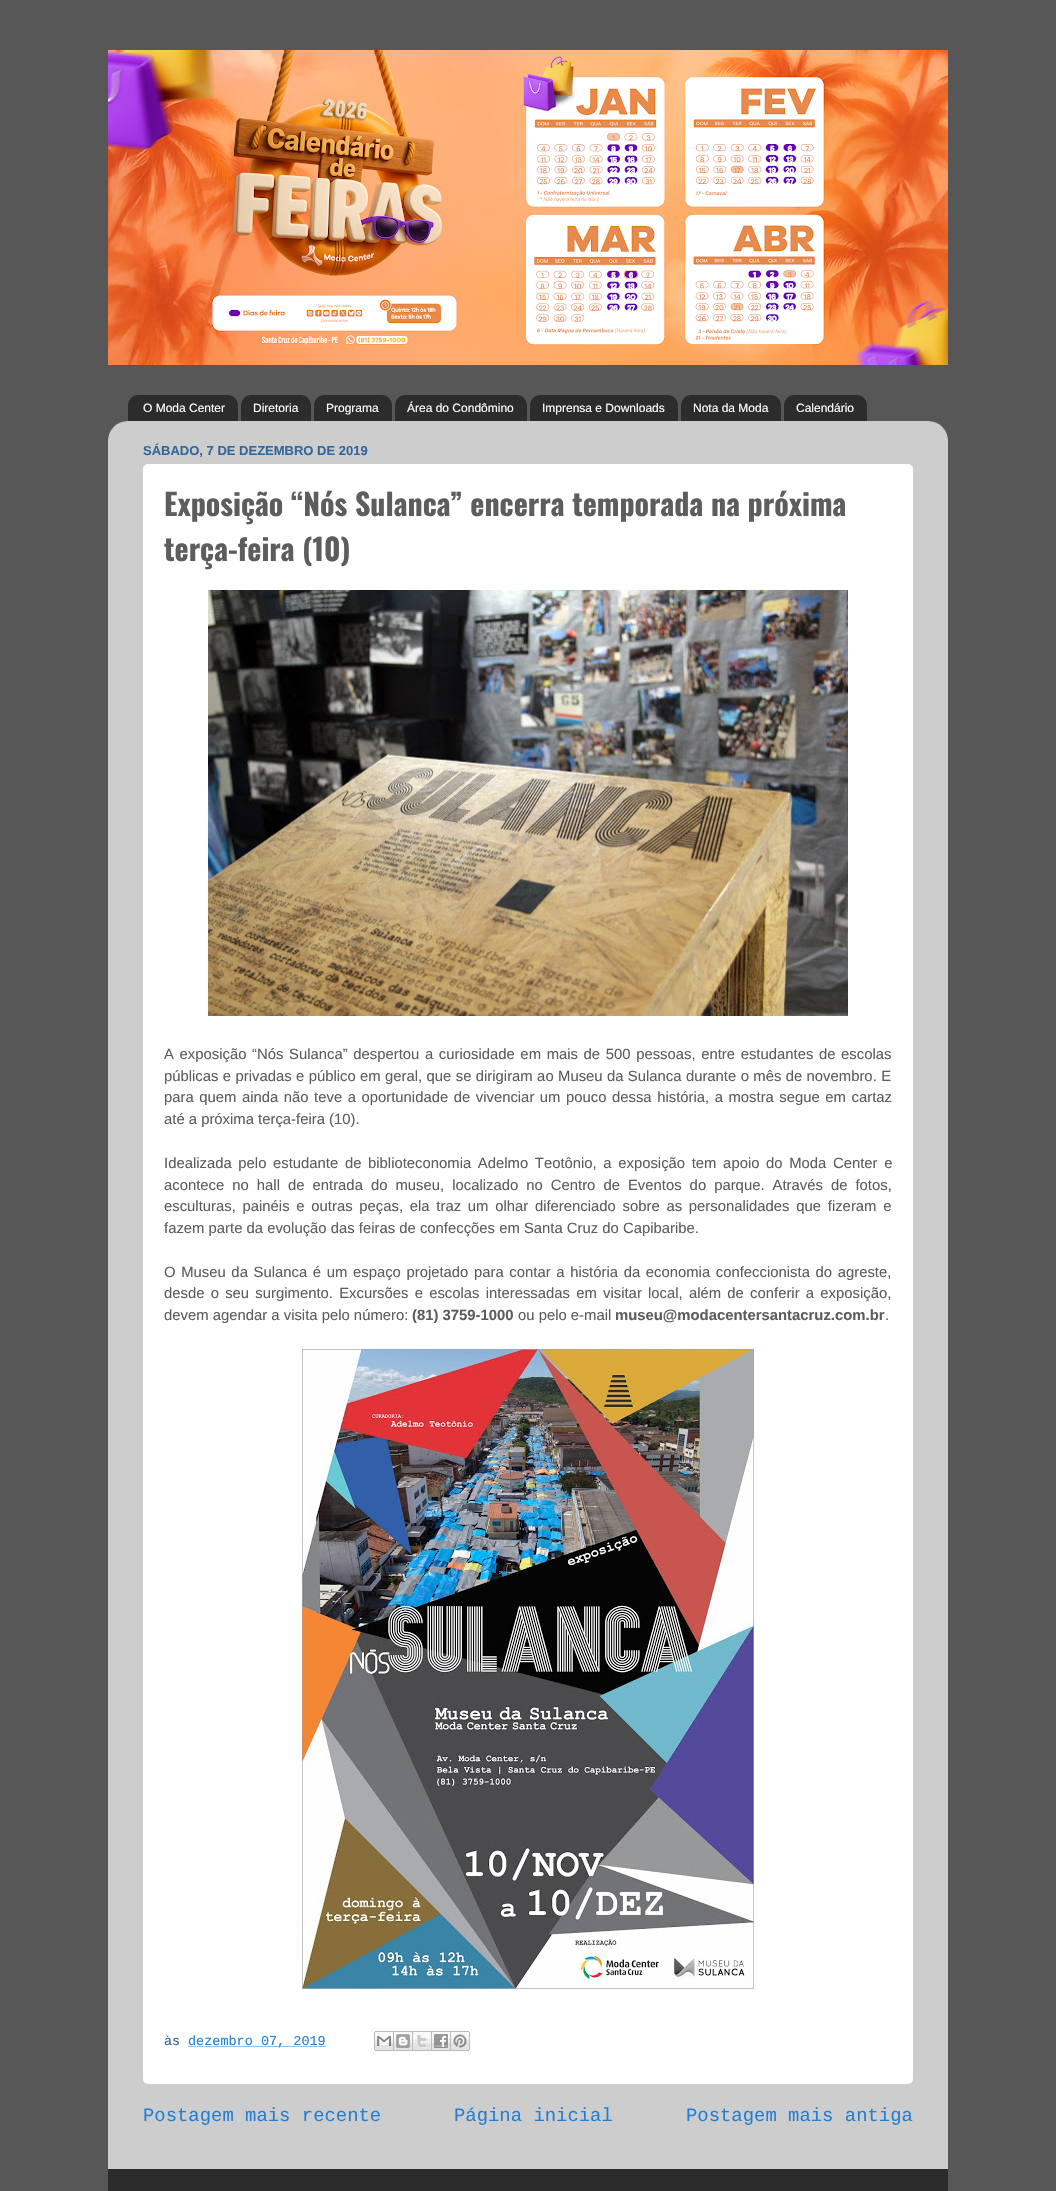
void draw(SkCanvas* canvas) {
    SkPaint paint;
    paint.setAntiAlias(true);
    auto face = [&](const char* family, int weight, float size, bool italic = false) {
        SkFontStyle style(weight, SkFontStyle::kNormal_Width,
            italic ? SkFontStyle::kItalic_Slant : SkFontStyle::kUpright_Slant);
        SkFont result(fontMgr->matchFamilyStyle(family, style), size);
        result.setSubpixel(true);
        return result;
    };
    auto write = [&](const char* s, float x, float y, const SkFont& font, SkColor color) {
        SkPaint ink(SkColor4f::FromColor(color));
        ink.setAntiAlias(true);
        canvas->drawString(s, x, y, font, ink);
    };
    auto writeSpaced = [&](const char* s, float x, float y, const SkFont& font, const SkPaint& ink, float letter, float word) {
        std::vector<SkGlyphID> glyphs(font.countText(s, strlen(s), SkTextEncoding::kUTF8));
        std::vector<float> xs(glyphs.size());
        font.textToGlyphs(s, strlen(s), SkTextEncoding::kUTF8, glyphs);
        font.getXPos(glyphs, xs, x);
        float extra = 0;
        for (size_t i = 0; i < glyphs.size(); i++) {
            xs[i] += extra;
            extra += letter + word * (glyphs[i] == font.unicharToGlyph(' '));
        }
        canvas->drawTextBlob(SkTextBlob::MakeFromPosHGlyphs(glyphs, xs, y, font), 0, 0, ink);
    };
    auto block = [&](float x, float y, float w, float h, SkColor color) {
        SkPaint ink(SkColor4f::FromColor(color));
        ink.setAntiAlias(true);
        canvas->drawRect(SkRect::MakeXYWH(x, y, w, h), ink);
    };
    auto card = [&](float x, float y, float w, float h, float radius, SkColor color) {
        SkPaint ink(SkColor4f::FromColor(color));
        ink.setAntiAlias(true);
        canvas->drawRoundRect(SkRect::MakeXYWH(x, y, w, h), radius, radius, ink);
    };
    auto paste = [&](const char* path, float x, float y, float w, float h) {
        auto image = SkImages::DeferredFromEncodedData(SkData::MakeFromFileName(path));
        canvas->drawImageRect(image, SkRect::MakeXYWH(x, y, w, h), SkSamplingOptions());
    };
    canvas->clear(SkColorSetRGB(87, 87, 87));
    paste("pic1.png", 108, 50, 840, 315);
    paste("pic2.png", 128, 395, 110, 26);
    auto kFont1 = face("Liberation Sans", 400, 12);
    write("O Moda Center", 143, 412, kFont1, SK_ColorWHITE);
    paste("pic3.png", 241, 395, 70, 26);
    write("Diretoria", 253, 412, kFont1, SK_ColorWHITE);
    paste("pic4.png", 314, 395, 78, 26);
    write("Programa", 326, 412, kFont1, SK_ColorWHITE);
    paste("pic5.png", 395, 395, 132, 26);
    write("Área do Condômino", 407, 412, kFont1, SK_ColorWHITE);
    paste("pic6.png", 530, 395, 148, 26);
    write("Imprensa e Downloads", 542, 412, kFont1, SK_ColorWHITE);
    paste("pic7.png", 681, 395, 100, 26);
    write("Nota da Moda", 693, 412, kFont1, SK_ColorWHITE);
    paste("pic8.png", 784, 395, 83, 26);
    write("Calendário", 796, 412, kFont1, SK_ColorWHITE);
    paste("pic9.png", 108, 421, 840, 1748);
    auto kFont2 = face("Liberation Sans", 700, 13);
    write("SÁBADO, 7 DE DEZEMBRO DE 2019", 143, 455, kFont2, SkColorSetRGB(51, 102, 153));
    card(143, 464, 770, 1620, 5, SK_ColorWHITE);
    auto kFont3 = face("Oswald", 700, 30);
    write("Exposição “Nós Sulanca” encerra temporada na próxima", 164, 516, kFont3, SkColorSetRGB(93, 93, 93));
    write("terça-feira (10)", 164, 561, kFont3, SkColorSetRGB(93, 93, 93));
    paste("pic10.png", 208, 590, 640, 426);
    auto kFont4 = face("Liberation Sans", 400, 14.85f);
    paint.setColor(SkColorSetRGB(93, 93, 93));
    writeSpaced("A exposição “Nós Sulanca” despertou a curiosidade em mais de 500 pessoas, entre estudantes de escolas", 164, 1059, kFont4, paint, 0, 1.5f);
    writeSpaced("públicas e privadas e público em geral, que se dirigiram ao Museu da Sulanca durante o mês de novembro. E", 164, 1081, kFont4, paint, 0, 0.25f);
    writeSpaced("para quem ainda não teve a oportunidade de vivenciar um pouco dessa história, a mostra segue em cartaz", 164, 1102, kFont4, paint, 0, 1.4f);
    write("até a próxima terça-feira (10).", 164, 1124, kFont4, SkColorSetRGB(93, 93, 93));
    writeSpaced("Idealizada pelo estudante de biblioteconomia Adelmo Teotônio, a exposição tem apoio do Moda Center e", 164, 1168, kFont4, paint, 0, 2.5f);
    writeSpaced("acontece no hall de entrada do museu, localizado no Centro de Eventos do parque. Através de fotos,", 164, 1190, kFont4, paint, 0, 3.9f);
    writeSpaced("esculturas, painéis e outras peças, ela traz um olhar diferenciado sobre as personalidades que fizeram e", 164, 1211, kFont4, paint, 0, 2.6f);
    write("fazem parte da evolução das feiras de confecções em Santa Cruz do Capibaribe.", 164, 1233, kFont4, SkColorSetRGB(93, 93, 93));
    writeSpaced("O Museu da Sulanca é um espaço projetado para contar a história da economia confeccionista do agreste,", 164, 1277, kFont4, paint, 0, 1.5f);
    writeSpaced("desde o seu surgimento. Excursões e escolas interessadas em visitar local, além de conferir a exposição,", 164, 1298, kFont4, paint, 0, 2.1f);
    write("devem agendar a visita pelo número:", 164, 1320, kFont4, SkColorSetRGB(93, 93, 93));
    auto kFont5 = face("Liberation Sans", 700, 14.85f);
    write("(81) 3759-1000", 412, 1320, kFont5, SkColorSetRGB(93, 93, 93));
    write("ou pelo e-mail", 518, 1320, kFont4, SkColorSetRGB(93, 93, 93));
    write("museu@modacentersantacruz.com.br", 615, 1320, kFont5, SkColorSetRGB(93, 93, 93));
    write(".", 885, 1320, kFont4, SkColorSetRGB(93, 93, 93));
    paste("pic11.png", 302, 1349, 452, 640);
    auto kFont6 = face("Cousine", 400, 13.5f);
    write("às", 164, 2045, kFont6, SkColorSetRGB(51, 102, 153));
    paint.setStyle(SkPaint::kStroke_Style);
    paint.setStrokeWidth(1);
    paint.setColor(SkColorSetRGB(35, 127, 212));
    paint.setPathEffect(SkDashPathEffect::Make({{1, 1}}, 0));
    canvas->drawPath(SkPathBuilder().moveTo(188.5f, 2046.5f).lineTo(326, 2046.5f).detach(), paint);
    paint.setPathEffect(nullptr);
    write("dezembro 07, 2019", 188, 2045, kFont6, SkColorSetRGB(35, 127, 212));
    paste("pic12.png", 374, 2031, 20, 20);
    paste("pic13.png", 394, 2031, 19, 20);
    paste("pic14.png", 413, 2031, 19, 20);
    paste("pic15.png", 432, 2031, 19, 20);
    paste("pic16.png", 451, 2031, 19, 20);
    auto kFont7 = face("Cousine", 400, 18.9f);
    write("Postagem mais recente", 143, 2121, kFont7, SkColorSetRGB(35, 127, 212));
    write("Página inicial", 454, 2121, kFont7, SkColorSetRGB(35, 127, 212));
    write("Postagem mais antiga", 686, 2121, kFont7, SkColorSetRGB(35, 127, 212));
    block(108, 2169, 840, 22, SkColorSetARGB(128, 0, 0, 0));
}
